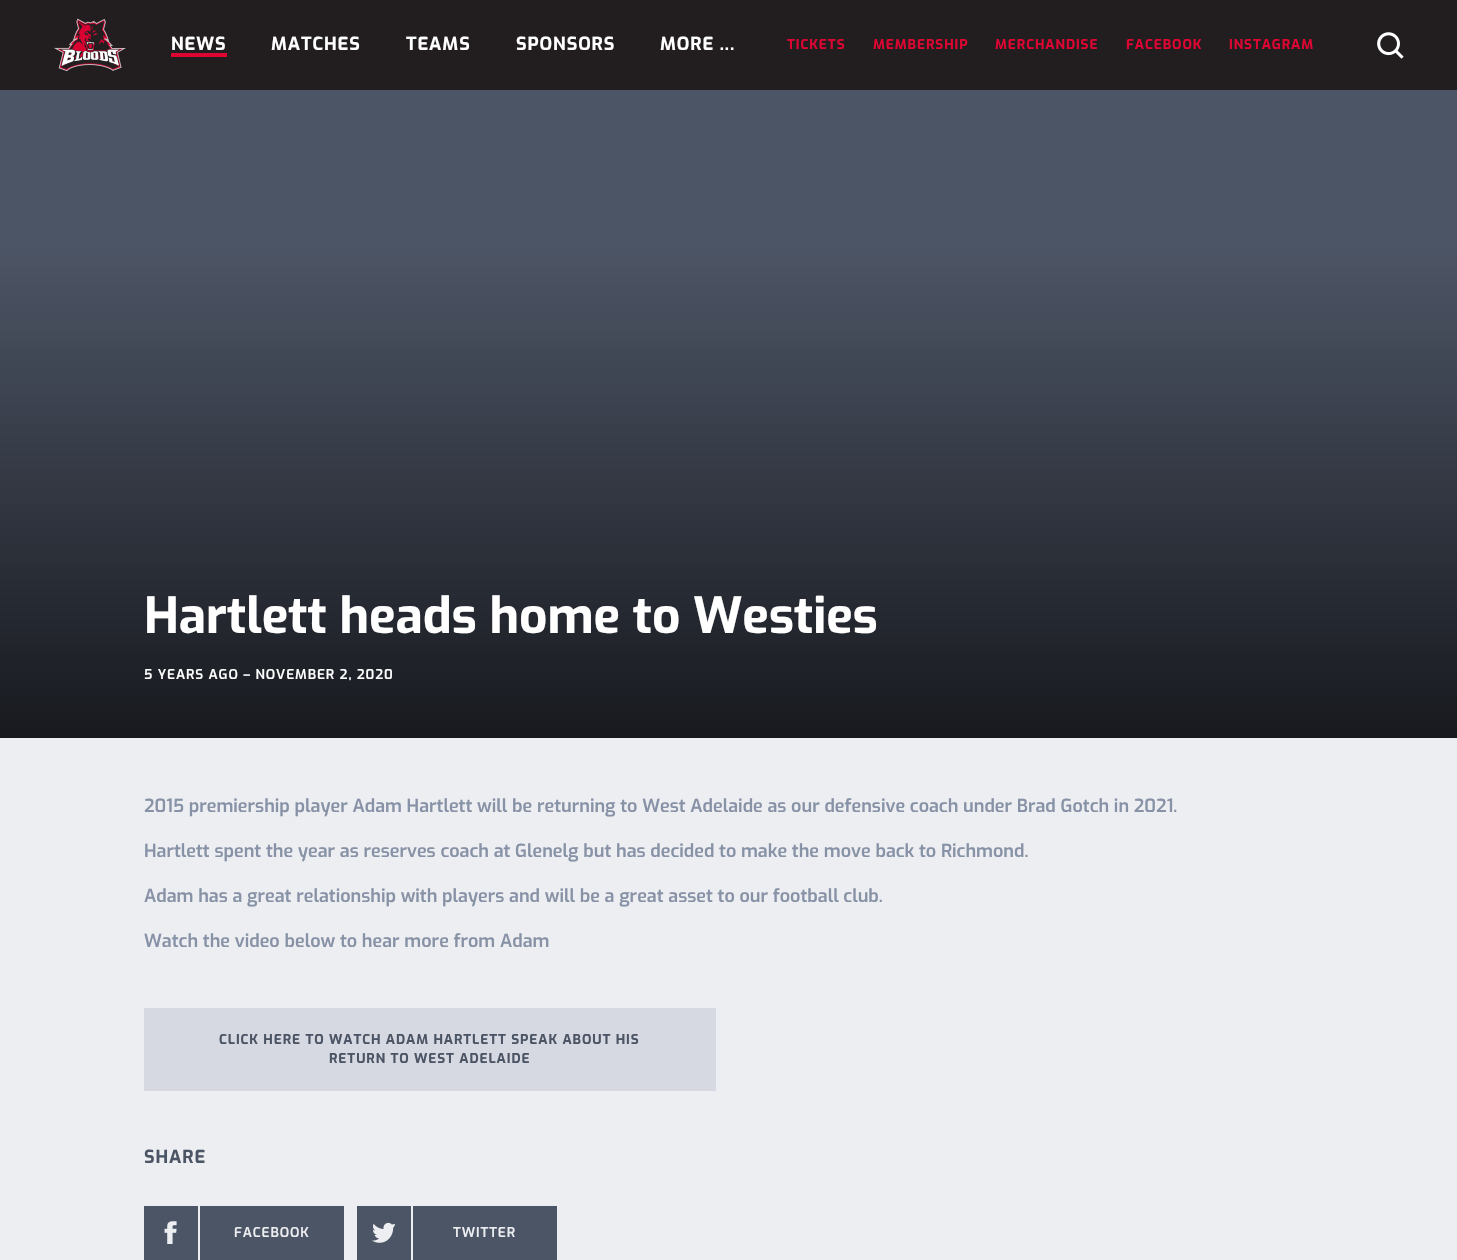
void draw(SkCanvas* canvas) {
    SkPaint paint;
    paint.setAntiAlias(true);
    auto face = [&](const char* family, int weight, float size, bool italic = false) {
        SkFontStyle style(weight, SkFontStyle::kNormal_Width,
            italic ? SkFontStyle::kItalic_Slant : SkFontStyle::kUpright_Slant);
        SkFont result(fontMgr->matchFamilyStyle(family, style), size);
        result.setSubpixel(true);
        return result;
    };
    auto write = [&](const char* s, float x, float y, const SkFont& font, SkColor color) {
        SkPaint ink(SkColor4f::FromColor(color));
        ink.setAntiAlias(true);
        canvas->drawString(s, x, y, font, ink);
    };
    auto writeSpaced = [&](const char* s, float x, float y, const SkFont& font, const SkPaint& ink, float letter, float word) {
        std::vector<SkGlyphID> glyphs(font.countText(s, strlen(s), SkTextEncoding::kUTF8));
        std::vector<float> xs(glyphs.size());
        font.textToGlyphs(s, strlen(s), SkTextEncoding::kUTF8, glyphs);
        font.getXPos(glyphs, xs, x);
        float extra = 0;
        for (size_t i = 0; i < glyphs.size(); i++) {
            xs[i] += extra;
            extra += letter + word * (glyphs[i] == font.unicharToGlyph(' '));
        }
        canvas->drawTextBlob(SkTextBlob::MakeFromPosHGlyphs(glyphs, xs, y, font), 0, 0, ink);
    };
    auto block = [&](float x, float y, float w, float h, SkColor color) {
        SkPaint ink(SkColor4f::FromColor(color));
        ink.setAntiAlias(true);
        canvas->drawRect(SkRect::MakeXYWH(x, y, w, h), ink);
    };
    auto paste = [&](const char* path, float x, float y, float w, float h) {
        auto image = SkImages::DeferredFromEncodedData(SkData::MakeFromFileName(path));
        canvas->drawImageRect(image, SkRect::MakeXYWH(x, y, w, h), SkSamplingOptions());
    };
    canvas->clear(SkColorSetRGB(237, 238, 242));
    block(0, 0, 1457, 90, SkColorSetRGB(34, 30, 32));
    paste("pic1.png", 54, 18, 72, 54);
    auto kFont1 = face("Exo", 700, 18);
    paint.setColor(SK_ColorWHITE);
    writeSpaced("NEWS", 171, 50, kFont1, paint, 0.9f, 0);
    block(171, 53, 56, 4, SkColorSetRGB(222, 5, 50));
    writeSpaced("MATCHES", 271, 50, kFont1, paint, 0.9f, 0);
    writeSpaced("TEAMS", 406, 50, kFont1, paint, 0.9f, 0);
    writeSpaced("SPONSORS", 516, 50, kFont1, paint, 0.9f, 0);
    writeSpaced("MORE ...", 660, 50, kFont1, paint, 0.9f, 0);
    auto kFont2 = face("Exo", 700, 13.5f);
    paint.setColor(SkColorSetRGB(222, 5, 50));
    writeSpaced("TICKETS", 787, 49, kFont2, paint, 0.9f, 0);
    writeSpaced("MEMBERSHIP", 873, 49, kFont2, paint, 0.9f, 0);
    writeSpaced("MERCHANDISE", 995, 49, kFont2, paint, 0.9f, 0);
    writeSpaced("FACEBOOK", 1126, 49, kFont2, paint, 0.9f, 0);
    writeSpaced("INSTAGRAM", 1229, 49, kFont2, paint, 0.9f, 0);
    paste("pic2.png", 1377, 32, 27, 27);
    block(0, 90, 1457, 164, SkColorSetRGB(76, 85, 101));
    {
        const SkColor colors[] = {SkColorSetRGB(76, 84, 100), SkColorSetRGB(23, 25, 30)};
        const float stops[] = {0, 1};
        const SkPoint ends[] = {{729, 253}, {729, 740}};
        paint.setShader(SkGradientShader::MakeLinear(ends, colors, stops, 2, SkTileMode::kClamp));
        paint.setAlpha(255);
    }
    canvas->drawRect(SkRect::MakeXYWH(0, 254, 1457, 484), paint);
    auto kFont3 = face("Exo", 700, 49.5f);
    write("Hartlett heads home to Westies", 144, 633, kFont3, SK_ColorWHITE);
    auto kFont4 = face("Exo", 600, 13.5f);
    paint.setShader(nullptr);
    paint.setColor(SK_ColorWHITE);
    writeSpaced("5 YEARS AGO – NOVEMBER 2, 2020", 144, 679, kFont4, paint, 0.9f, 0);
    auto kFont5 = face("Exo", 600, 18);
    write("2015 premiership player Adam Hartlett will be returning to West Adelaide as our defensive coach under Brad Gotch in 2021.", 144, 812, kFont5, SkColorSetRGB(135, 146, 166));
    write("Hartlett spent the year as reserves coach at Glenelg but has decided to make the move back to Richmond.", 144, 857, kFont5, SkColorSetRGB(135, 146, 166));
    write("Adam has a great relationship with players and will be a great asset to our football club.", 144, 902, kFont5, SkColorSetRGB(135, 146, 166));
    write("Watch the video below to hear more from Adam", 144, 947, kFont5, SkColorSetRGB(135, 146, 166));
    block(144, 1008, 572, 83, SkColorSetRGB(214, 217, 226));
    paint.setColor(SkColorSetRGB(76, 85, 101));
    writeSpaced("CLICK HERE TO WATCH ADAM HARTLETT SPEAK ABOUT HIS", 219, 1044, kFont2, paint, 0.9f, 0);
    writeSpaced("RETURN TO WEST ADELAIDE", 329, 1063, kFont2, paint, 0.9f, 0);
    writeSpaced("SHARE", 144, 1163, kFont1, paint, 0.9f, 0);
    block(144, 1206, 200, 54, SkColorSetRGB(76, 85, 101));
    block(198, 1206, 2, 54, SkColorSetRGB(237, 238, 242));
    paste("pic3.png", 164, 1221, 13, 23);
    paint.setColor(SkColorSetRGB(237, 238, 242));
    writeSpaced("FACEBOOK", 234, 1237, kFont4, paint, 0.9f, 0);
    block(357, 1206, 200, 54, SkColorSetRGB(76, 85, 101));
    block(411, 1206, 2, 54, SkColorSetRGB(237, 238, 242));
    paste("pic4.png", 372, 1222, 23, 21);
    writeSpaced("TWITTER", 453, 1237, kFont4, paint, 0.9f, 0);
}
